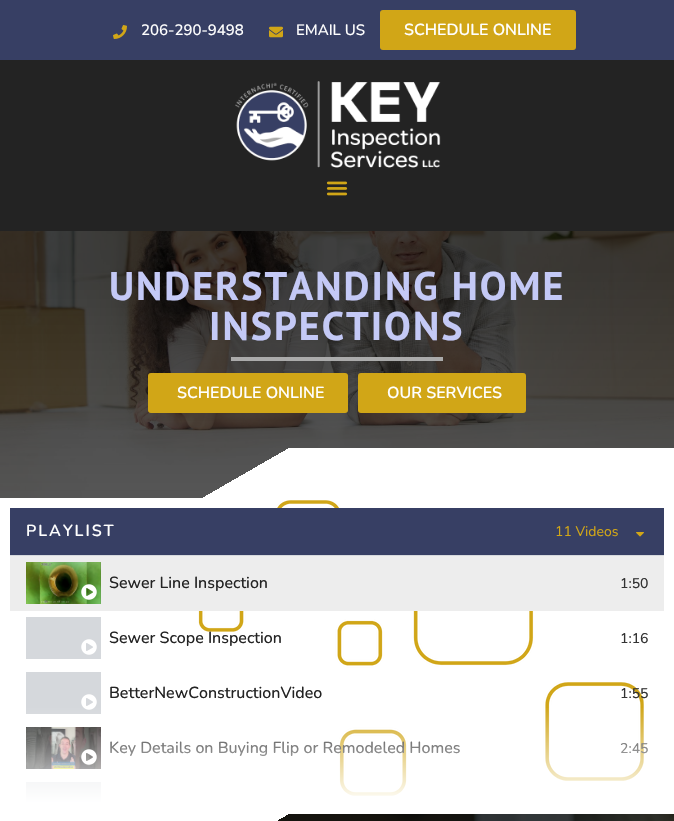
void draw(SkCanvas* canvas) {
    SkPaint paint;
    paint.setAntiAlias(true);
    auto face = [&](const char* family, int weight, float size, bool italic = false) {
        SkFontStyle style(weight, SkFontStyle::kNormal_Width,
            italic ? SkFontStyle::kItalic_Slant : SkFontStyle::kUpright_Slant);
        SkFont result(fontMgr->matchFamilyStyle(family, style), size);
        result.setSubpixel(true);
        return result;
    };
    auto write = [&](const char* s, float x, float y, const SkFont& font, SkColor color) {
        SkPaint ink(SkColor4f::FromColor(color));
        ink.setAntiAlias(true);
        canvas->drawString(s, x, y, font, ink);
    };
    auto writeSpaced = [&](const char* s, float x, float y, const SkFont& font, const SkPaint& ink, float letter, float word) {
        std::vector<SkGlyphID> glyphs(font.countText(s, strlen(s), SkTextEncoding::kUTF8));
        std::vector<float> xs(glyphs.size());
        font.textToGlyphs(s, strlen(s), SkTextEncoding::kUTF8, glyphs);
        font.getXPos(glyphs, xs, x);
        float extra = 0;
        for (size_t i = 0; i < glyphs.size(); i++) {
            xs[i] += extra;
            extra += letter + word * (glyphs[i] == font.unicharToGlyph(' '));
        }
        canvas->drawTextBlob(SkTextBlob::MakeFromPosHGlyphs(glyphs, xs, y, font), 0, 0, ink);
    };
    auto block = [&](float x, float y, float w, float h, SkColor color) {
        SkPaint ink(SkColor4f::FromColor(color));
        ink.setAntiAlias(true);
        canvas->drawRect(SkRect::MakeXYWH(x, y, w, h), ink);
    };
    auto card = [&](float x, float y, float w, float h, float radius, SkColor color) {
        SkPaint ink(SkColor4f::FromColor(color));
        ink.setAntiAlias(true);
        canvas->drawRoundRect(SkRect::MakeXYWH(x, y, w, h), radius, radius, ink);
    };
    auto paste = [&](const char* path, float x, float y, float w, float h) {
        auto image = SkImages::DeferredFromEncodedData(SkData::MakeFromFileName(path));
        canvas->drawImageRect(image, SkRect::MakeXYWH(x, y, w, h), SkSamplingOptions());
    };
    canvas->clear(SK_ColorWHITE);
    block(0, 0, 674, 60, SkColorSetRGB(55, 63, 100));
    paste("pic1.png", 113, 25, 14, 14);
    auto kFont1 = face("Nunito", 500, 15);
    write("206-290-9498", 141, 35, kFont1, SK_ColorWHITE);
    paste("pic2.png", 269, 26, 14, 12);
    write("EMAIL US", 296, 35, kFont1, SK_ColorWHITE);
    card(380, 10, 196, 40, 3, SkColorSetRGB(209, 166, 23));
    auto kFont2 = face("Nunito", 600, 16);
    write("SCHEDULE ONLINE", 404, 35, kFont2, SK_ColorWHITE);
    block(0, 60, 674, 171, SkColorSetRGB(35, 35, 35));
    paste("pic3.png", 235, 81, 206, 87);
    paste("pic4.png", 326, 181, 22, 15);
    paste("pic5.png", 0, 231, 674, 267);
    auto kFont3 = face("PT Sans", 700, 40);
    paint.setColor(SkColorSetRGB(196, 201, 246));
    writeSpaced("UNDERSTANDING HOME", 109, 300, kFont3, paint, 2, 0);
    writeSpaced("INSPECTIONS", 209, 340, kFont3, paint, 2, 0);
    block(231, 357, 212, 4, SkColorSetRGB(171, 171, 171));
    card(148, 373, 200, 40, 3, SkColorSetRGB(209, 166, 23));
    write("SCHEDULE ONLINE", 177, 398, kFont2, SK_ColorWHITE);
    card(358, 373, 168, 40, 3, SkColorSetRGB(209, 166, 23));
    write("OUR SERVICES", 387, 398, kFont2, SK_ColorWHITE);
    paste("pic6.png", 198, 500, 446, 296);
    block(10, 508, 654, 47, SkColorSetRGB(55, 63, 100));
    block(10, 555, 654, 1, SkColorSetRGB(213, 216, 220));
    paint.setColor(SK_ColorWHITE);
    writeSpaced("PLAYLIST", 26, 536, kFont2, paint, 2, 0);
    auto kFont4 = face("Nunito", 400, 14);
    write("11 Videos", 555, 536, kFont4, SkColorSetRGB(209, 166, 23));
    paste("pic7.png", 636, 532, 8, 5);
    block(10, 556, 654, 55, SkColorSetRGB(237, 237, 237));
    paste("pic8.png", 26, 562, 75, 42);
    paste("pic9.png", 81, 584, 16, 16);
    auto kFont5 = face("Nunito", 500, 16);
    write("Sewer Line Inspection", 109, 588, kFont5, SkColorSetRGB(35, 35, 35));
    auto kFont6 = face("Nunito", 500, 14);
    write("1:50", 620, 588, kFont6, SkColorSetRGB(51, 51, 51));
    block(26, 617, 75, 42, SkColorSetRGB(213, 216, 220));
    paste("pic10.png", 81, 639, 16, 16);
    write("Sewer Scope Inspection", 109, 643, kFont5, SkColorSetRGB(35, 35, 35));
    write("1:16", 620, 643, kFont6, SkColorSetRGB(51, 51, 51));
    block(26, 672, 75, 42, SkColorSetRGB(213, 216, 220));
    paste("pic10.png", 81, 694, 16, 16);
    write("BetterNewConstructionVideo", 109, 698, kFont5, SkColorSetRGB(35, 35, 35));
    write("1:55", 620, 698, kFont6, SkColorSetRGB(51, 51, 51));
    paste("pic11.png", 26, 727, 75, 42);
    paste("pic12.png", 81, 749, 16, 16);
    write("Key Details on Buying Flip or Remodeled Homes", 109, 753, kFont5, SkColorSetRGB(35, 35, 35));
    write("2:45", 620, 753, kFont6, SkColorSetRGB(51, 51, 51));
    block(26, 782, 75, 21, SkColorSetRGB(213, 216, 220));
    {
        const SkColor colors[] = {SkColorSetARGB(0, 255, 255, 255), SK_ColorWHITE};
        const float stops[] = {0, 1};
        const SkPoint ends[] = {{337, 706}, {337, 804}};
        paint.setShader(SkGradientShader::MakeLinear(ends, colors, stops, 2, SkTileMode::kClamp));
        paint.setAlpha(255);
    }
    canvas->drawRect(SkRect::MakeXYWH(26, 708, 622, 95), paint);
    paste("pic13.png", 0, 814, 674, 7);
}
